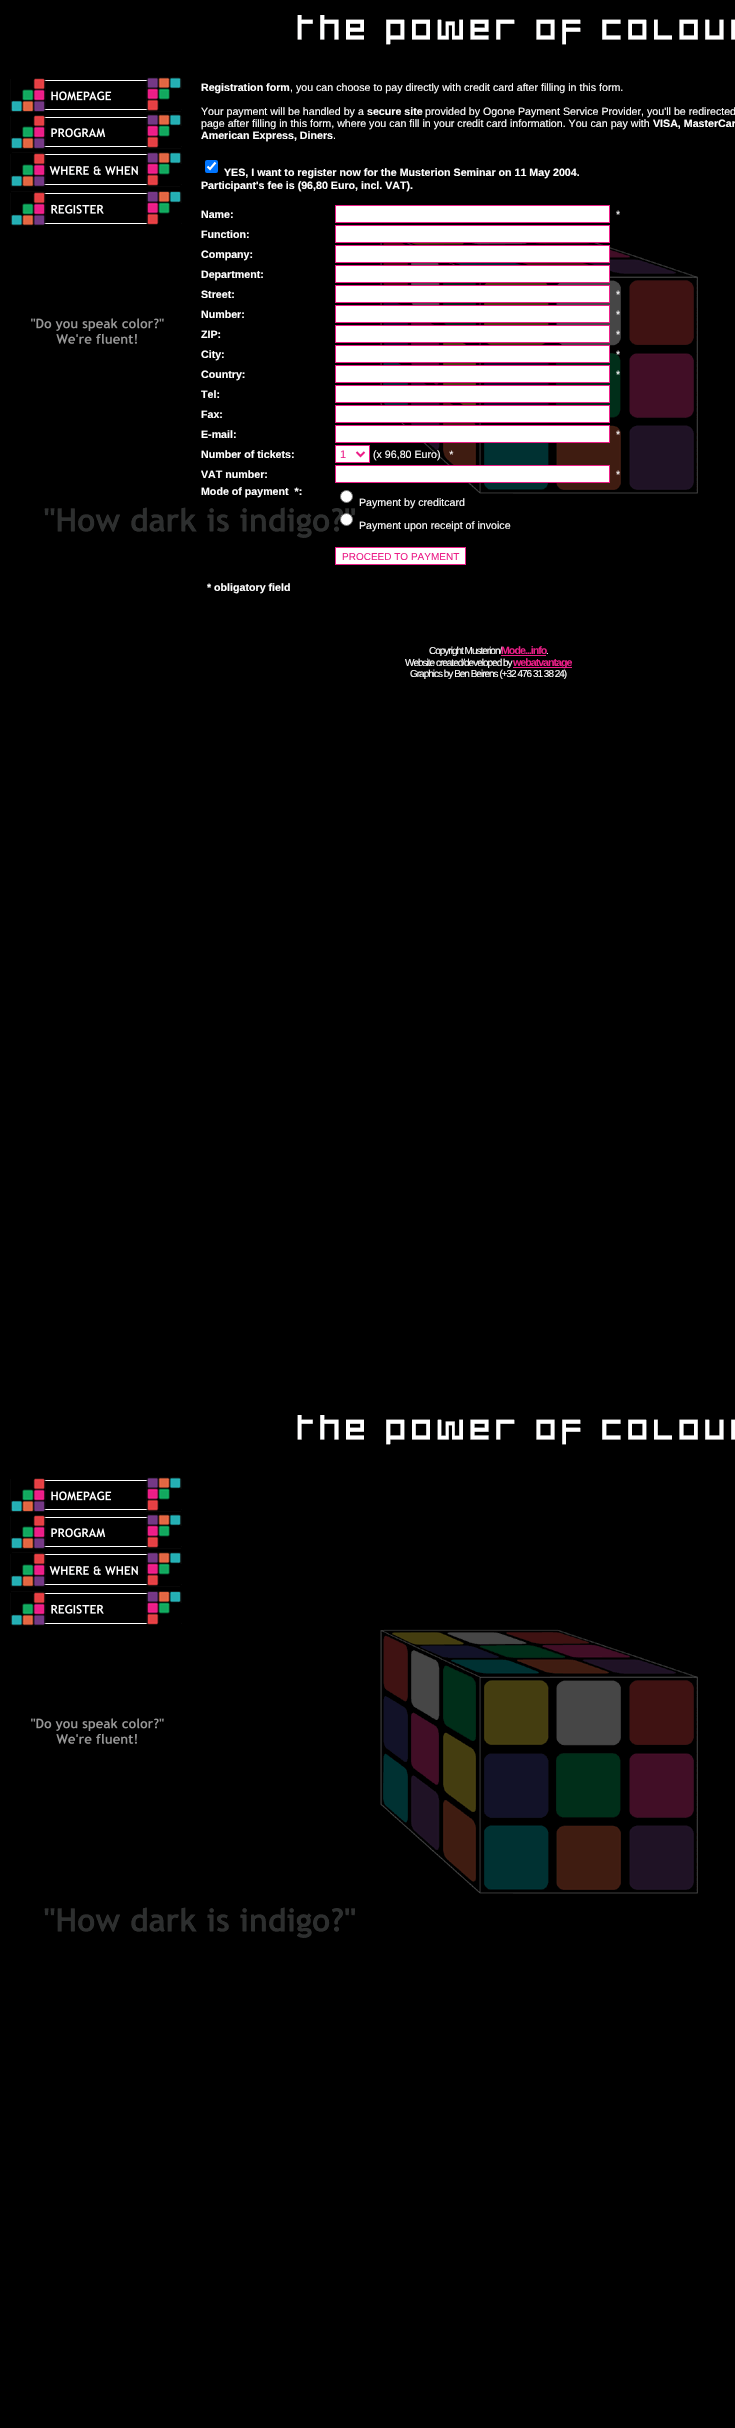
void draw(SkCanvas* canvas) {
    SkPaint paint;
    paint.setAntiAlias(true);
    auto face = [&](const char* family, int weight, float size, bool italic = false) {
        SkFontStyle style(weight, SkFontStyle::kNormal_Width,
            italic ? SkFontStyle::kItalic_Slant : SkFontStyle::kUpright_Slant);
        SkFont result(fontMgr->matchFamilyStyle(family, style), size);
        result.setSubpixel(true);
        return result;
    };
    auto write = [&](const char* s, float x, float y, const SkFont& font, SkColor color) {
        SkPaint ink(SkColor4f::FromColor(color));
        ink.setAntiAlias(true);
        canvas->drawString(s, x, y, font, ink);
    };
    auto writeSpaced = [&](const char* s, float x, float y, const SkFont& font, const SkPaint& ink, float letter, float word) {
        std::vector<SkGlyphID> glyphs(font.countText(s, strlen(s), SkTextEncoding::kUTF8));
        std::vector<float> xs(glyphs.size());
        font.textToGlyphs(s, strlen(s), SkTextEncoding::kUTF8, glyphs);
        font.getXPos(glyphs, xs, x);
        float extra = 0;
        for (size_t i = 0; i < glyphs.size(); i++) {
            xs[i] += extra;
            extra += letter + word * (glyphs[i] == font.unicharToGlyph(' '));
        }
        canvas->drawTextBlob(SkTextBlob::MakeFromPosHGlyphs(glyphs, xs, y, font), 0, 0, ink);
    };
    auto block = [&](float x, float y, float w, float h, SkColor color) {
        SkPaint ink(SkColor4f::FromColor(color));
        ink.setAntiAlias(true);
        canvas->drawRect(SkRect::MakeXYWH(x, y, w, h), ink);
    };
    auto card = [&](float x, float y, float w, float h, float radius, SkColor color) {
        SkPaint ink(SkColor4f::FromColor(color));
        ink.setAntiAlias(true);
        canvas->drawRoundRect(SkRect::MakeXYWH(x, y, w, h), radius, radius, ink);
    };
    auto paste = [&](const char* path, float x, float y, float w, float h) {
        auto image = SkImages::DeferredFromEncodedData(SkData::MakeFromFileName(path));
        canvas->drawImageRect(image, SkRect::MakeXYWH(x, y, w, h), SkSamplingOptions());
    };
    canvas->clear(SK_ColorBLACK);
    paste("pic1.png", 10, 15, 725, 1923);
    auto kFont1 = face("Liberation Sans", 700, 10.65f);
    write("Registration form", 201, 91, kFont1, SK_ColorWHITE);
    auto kFont2 = face("Liberation Sans", 400, 10.65f);
    write(", you can choose to pay directly with credit card after filling in this form.", 290, 91, kFont2, SK_ColorWHITE);
    write("Your payment will be handled by a", 201, 115, kFont2, SK_ColorWHITE);
    write("secure site", 367, 115, kFont1, SK_ColorWHITE);
    write("provided by Ogone Payment Service Provider, you'll be redirected", 425, 115, kFont2, SK_ColorWHITE);
    write("page after filling in this form, where you can fill in your credit card information. You can pay with", 201, 127, kFont2, SK_ColorWHITE);
    write("VISA, MasterCar", 653, 127, kFont1, SK_ColorWHITE);
    write("American Express, Diners", 201, 139, kFont1, SK_ColorWHITE);
    write(".", 333, 139, kFont2, SK_ColorWHITE);
    card(205, 160, 13, 13, 2, SkColorSetRGB(0, 117, 255));
    paint.setStyle(SkPaint::kStroke_Style);
    paint.setStrokeWidth(2.1f);
    paint.setColor(SK_ColorWHITE);
    canvas->drawPath(SkPathBuilder().moveTo(207.5f, 166.5f).lineTo(210, 169).lineTo(215.5f, 162.5f).detach(), paint);
    write("YES, I want to register now for the Musterion Seminar on 11 May 2004.", 224, 176, kFont1, SK_ColorWHITE);
    write("Participant's fee is (96,80 Euro, incl. VAT).", 201, 189, kFont1, SK_ColorWHITE);
    write("Name:", 201, 218, kFont1, SK_ColorWHITE);
    paint.setStyle(SkPaint::kFill_Style);
    canvas->drawRect(SkRect::MakeXYWH(335.5f, 205.5f, 274, 17), paint);
    paint.setStyle(SkPaint::kStroke_Style);
    paint.setStrokeWidth(1);
    paint.setColor(SkColorSetRGB(236, 30, 136));
    canvas->drawRect(SkRect::MakeXYWH(335.5f, 205.5f, 274, 17), paint);
    write("*", 616, 218, kFont2, SK_ColorWHITE);
    write("Function:", 201, 238, kFont1, SK_ColorWHITE);
    paint.setStyle(SkPaint::kFill_Style);
    paint.setColor(SK_ColorWHITE);
    canvas->drawRect(SkRect::MakeXYWH(335.5f, 225.5f, 274, 17), paint);
    paint.setStyle(SkPaint::kStroke_Style);
    paint.setColor(SkColorSetRGB(236, 30, 136));
    canvas->drawRect(SkRect::MakeXYWH(335.5f, 225.5f, 274, 17), paint);
    write("Company:", 201, 258, kFont1, SK_ColorWHITE);
    paint.setStyle(SkPaint::kFill_Style);
    paint.setColor(SK_ColorWHITE);
    canvas->drawRect(SkRect::MakeXYWH(335.5f, 245.5f, 274, 17), paint);
    paint.setStyle(SkPaint::kStroke_Style);
    paint.setColor(SkColorSetRGB(236, 30, 136));
    canvas->drawRect(SkRect::MakeXYWH(335.5f, 245.5f, 274, 17), paint);
    write("Department:", 201, 278, kFont1, SK_ColorWHITE);
    paint.setStyle(SkPaint::kFill_Style);
    paint.setColor(SK_ColorWHITE);
    canvas->drawRect(SkRect::MakeXYWH(335.5f, 265.5f, 274, 17), paint);
    paint.setStyle(SkPaint::kStroke_Style);
    paint.setColor(SkColorSetRGB(236, 30, 136));
    canvas->drawRect(SkRect::MakeXYWH(335.5f, 265.5f, 274, 17), paint);
    write("Street:", 201, 298, kFont1, SK_ColorWHITE);
    paint.setStyle(SkPaint::kFill_Style);
    paint.setColor(SK_ColorWHITE);
    canvas->drawRect(SkRect::MakeXYWH(335.5f, 285.5f, 274, 17), paint);
    paint.setStyle(SkPaint::kStroke_Style);
    paint.setColor(SkColorSetRGB(236, 30, 136));
    canvas->drawRect(SkRect::MakeXYWH(335.5f, 285.5f, 274, 17), paint);
    write("*", 616, 298, kFont2, SK_ColorWHITE);
    write("Number:", 201, 318, kFont1, SK_ColorWHITE);
    paint.setStyle(SkPaint::kFill_Style);
    paint.setColor(SK_ColorWHITE);
    canvas->drawRect(SkRect::MakeXYWH(335.5f, 305.5f, 274, 17), paint);
    paint.setStyle(SkPaint::kStroke_Style);
    paint.setColor(SkColorSetRGB(236, 30, 136));
    canvas->drawRect(SkRect::MakeXYWH(335.5f, 305.5f, 274, 17), paint);
    write("*", 616, 318, kFont2, SK_ColorWHITE);
    write("ZIP:", 201, 338, kFont1, SK_ColorWHITE);
    paint.setStyle(SkPaint::kFill_Style);
    paint.setColor(SK_ColorWHITE);
    canvas->drawRect(SkRect::MakeXYWH(335.5f, 325.5f, 274, 17), paint);
    paint.setStyle(SkPaint::kStroke_Style);
    paint.setColor(SkColorSetRGB(236, 30, 136));
    canvas->drawRect(SkRect::MakeXYWH(335.5f, 325.5f, 274, 17), paint);
    write("*", 616, 338, kFont2, SK_ColorWHITE);
    write("City:", 201, 358, kFont1, SK_ColorWHITE);
    paint.setStyle(SkPaint::kFill_Style);
    paint.setColor(SK_ColorWHITE);
    canvas->drawRect(SkRect::MakeXYWH(335.5f, 345.5f, 274, 17), paint);
    paint.setStyle(SkPaint::kStroke_Style);
    paint.setColor(SkColorSetRGB(236, 30, 136));
    canvas->drawRect(SkRect::MakeXYWH(335.5f, 345.5f, 274, 17), paint);
    write("*", 616, 358, kFont2, SK_ColorWHITE);
    write("Country:", 201, 378, kFont1, SK_ColorWHITE);
    paint.setStyle(SkPaint::kFill_Style);
    paint.setColor(SK_ColorWHITE);
    canvas->drawRect(SkRect::MakeXYWH(335.5f, 365.5f, 274, 17), paint);
    paint.setStyle(SkPaint::kStroke_Style);
    paint.setColor(SkColorSetRGB(236, 30, 136));
    canvas->drawRect(SkRect::MakeXYWH(335.5f, 365.5f, 274, 17), paint);
    write("*", 616, 378, kFont2, SK_ColorWHITE);
    write("Tel:", 201, 398, kFont1, SK_ColorWHITE);
    paint.setStyle(SkPaint::kFill_Style);
    paint.setColor(SK_ColorWHITE);
    canvas->drawRect(SkRect::MakeXYWH(335.5f, 385.5f, 274, 17), paint);
    paint.setStyle(SkPaint::kStroke_Style);
    paint.setColor(SkColorSetRGB(236, 30, 136));
    canvas->drawRect(SkRect::MakeXYWH(335.5f, 385.5f, 274, 17), paint);
    write("Fax:", 201, 418, kFont1, SK_ColorWHITE);
    paint.setStyle(SkPaint::kFill_Style);
    paint.setColor(SK_ColorWHITE);
    canvas->drawRect(SkRect::MakeXYWH(335.5f, 405.5f, 274, 17), paint);
    paint.setStyle(SkPaint::kStroke_Style);
    paint.setColor(SkColorSetRGB(236, 30, 136));
    canvas->drawRect(SkRect::MakeXYWH(335.5f, 405.5f, 274, 17), paint);
    write("E-mail:", 201, 438, kFont1, SK_ColorWHITE);
    paint.setStyle(SkPaint::kFill_Style);
    paint.setColor(SK_ColorWHITE);
    canvas->drawRect(SkRect::MakeXYWH(335.5f, 425.5f, 274, 17), paint);
    paint.setStyle(SkPaint::kStroke_Style);
    paint.setColor(SkColorSetRGB(236, 30, 136));
    canvas->drawRect(SkRect::MakeXYWH(335.5f, 425.5f, 274, 17), paint);
    write("*", 616, 438, kFont2, SK_ColorWHITE);
    write("Number of tickets:", 201, 458, kFont1, SK_ColorWHITE);
    paint.setStyle(SkPaint::kFill_Style);
    paint.setColor(SK_ColorWHITE);
    canvas->drawRect(SkRect::MakeXYWH(335.5f, 445.5f, 34, 17), paint);
    paint.setStyle(SkPaint::kStroke_Style);
    paint.setColor(SkColorSetRGB(236, 30, 136));
    canvas->drawRect(SkRect::MakeXYWH(335.5f, 445.5f, 34, 17), paint);
    paint.setStrokeWidth(2);
    canvas->drawPath(SkPathBuilder().moveTo(356.5f, 452).lineTo(360.5f, 456).lineTo(364.5f, 452).detach(), paint);
    auto kFont3 = face("Liberation Sans", 400, 11);
    write("1", 340, 458, kFont3, SkColorSetRGB(236, 30, 136));
    write("(x 96,80 Euro)   *", 373, 458, kFont2, SK_ColorWHITE);
    write("VAT number:", 201, 478, kFont1, SK_ColorWHITE);
    paint.setStyle(SkPaint::kFill_Style);
    paint.setColor(SK_ColorWHITE);
    canvas->drawRect(SkRect::MakeXYWH(335.5f, 465.5f, 274, 17), paint);
    paint.setStyle(SkPaint::kStroke_Style);
    paint.setStrokeWidth(1);
    paint.setColor(SkColorSetRGB(236, 30, 136));
    canvas->drawRect(SkRect::MakeXYWH(335.5f, 465.5f, 274, 17), paint);
    write("*", 616, 478, kFont2, SK_ColorWHITE);
    write("Mode of payment  *:", 201, 495, kFont1, SK_ColorWHITE);
    paint.setStyle(SkPaint::kFill_Style);
    paint.setColor(SK_ColorWHITE);
    canvas->drawCircle(346.5f, 496.5f, 6, paint);
    paint.setStyle(SkPaint::kStroke_Style);
    paint.setColor(SkColorSetRGB(118, 118, 118));
    canvas->drawCircle(346.5f, 496.5f, 6, paint);
    write("Payment by creditcard", 359, 506, kFont2, SK_ColorWHITE);
    paint.setStyle(SkPaint::kFill_Style);
    paint.setColor(SK_ColorWHITE);
    canvas->drawCircle(346.5f, 519.5f, 6, paint);
    paint.setStyle(SkPaint::kStroke_Style);
    paint.setColor(SkColorSetRGB(118, 118, 118));
    canvas->drawCircle(346.5f, 519.5f, 6, paint);
    write("Payment upon receipt of invoice", 359, 529, kFont2, SK_ColorWHITE);
    paint.setStyle(SkPaint::kFill_Style);
    paint.setColor(SK_ColorWHITE);
    canvas->drawRect(SkRect::MakeXYWH(335.5f, 547.5f, 130, 17), paint);
    paint.setStyle(SkPaint::kStroke_Style);
    paint.setColor(SkColorSetRGB(236, 30, 136));
    canvas->drawRect(SkRect::MakeXYWH(335.5f, 547.5f, 130, 17), paint);
    auto kFont4 = face("Liberation Sans", 400, 10);
    write("PROCEED TO PAYMENT", 342, 560, kFont4, SkColorSetRGB(236, 30, 136));
    write("* obligatory field", 207, 591, kFont1, SK_ColorWHITE);
    paint.setStyle(SkPaint::kFill_Style);
    paint.setColor(SK_ColorWHITE);
    writeSpaced("Copyright Musterion/", 429, 654, kFont4, paint, -1, 0);
    paint.setColor(SkColorSetRGB(236, 30, 136));
    writeSpaced("Mode...info", 501, 654, kFont1, paint, -1, 0);
    block(501, 655, 45, 1, SkColorSetRGB(236, 30, 136));
    paint.setColor(SK_ColorWHITE);
    writeSpaced(".", 546, 654, kFont4, paint, -1, 0);
    writeSpaced("Website created/developed by", 405, 666, kFont4, paint, -1, 0);
    block(513, 667, 59, 1, SkColorSetRGB(236, 30, 136));
    paint.setColor(SkColorSetRGB(236, 30, 136));
    writeSpaced("webatvantage", 513, 666, kFont1, paint, -1, 0);
    paint.setColor(SK_ColorWHITE);
    writeSpaced("Graphics by Ben Beirens (+32 476 31 38 24)", 410, 677, kFont4, paint, -1, 0);
}
